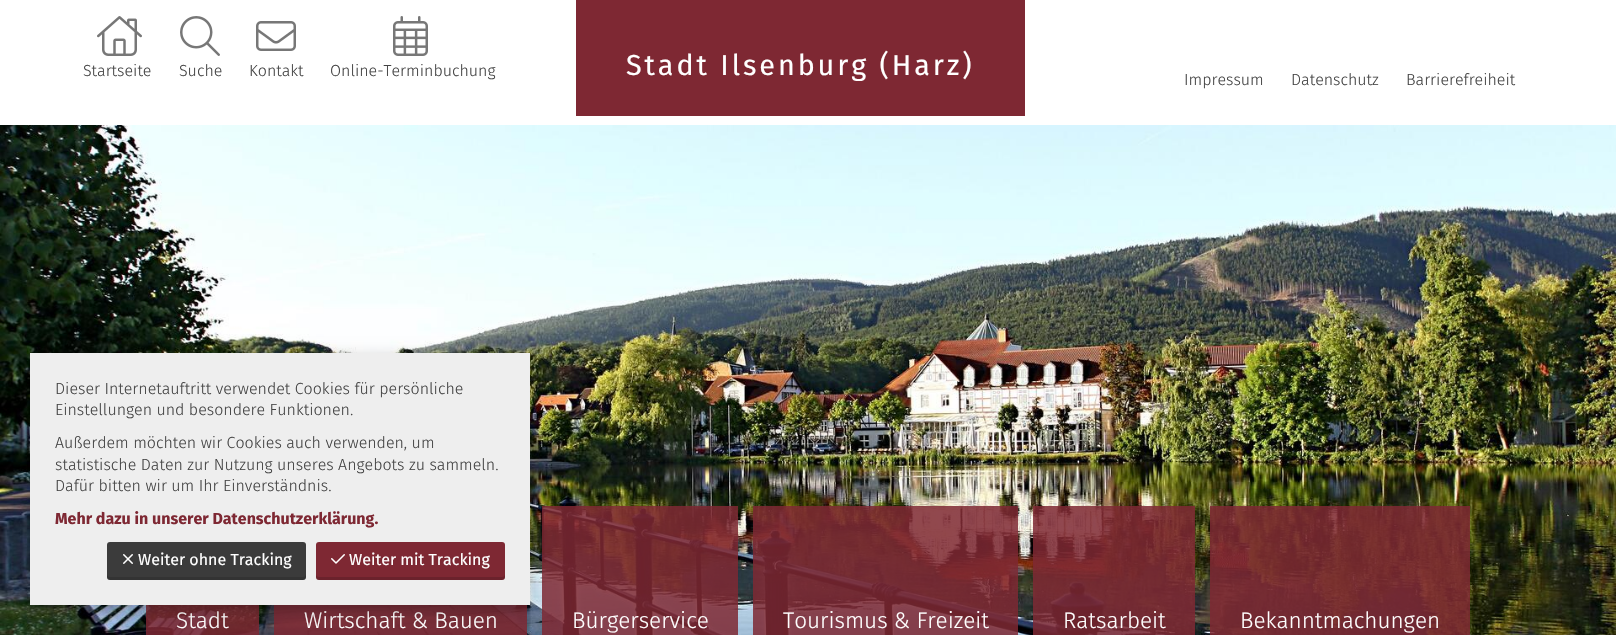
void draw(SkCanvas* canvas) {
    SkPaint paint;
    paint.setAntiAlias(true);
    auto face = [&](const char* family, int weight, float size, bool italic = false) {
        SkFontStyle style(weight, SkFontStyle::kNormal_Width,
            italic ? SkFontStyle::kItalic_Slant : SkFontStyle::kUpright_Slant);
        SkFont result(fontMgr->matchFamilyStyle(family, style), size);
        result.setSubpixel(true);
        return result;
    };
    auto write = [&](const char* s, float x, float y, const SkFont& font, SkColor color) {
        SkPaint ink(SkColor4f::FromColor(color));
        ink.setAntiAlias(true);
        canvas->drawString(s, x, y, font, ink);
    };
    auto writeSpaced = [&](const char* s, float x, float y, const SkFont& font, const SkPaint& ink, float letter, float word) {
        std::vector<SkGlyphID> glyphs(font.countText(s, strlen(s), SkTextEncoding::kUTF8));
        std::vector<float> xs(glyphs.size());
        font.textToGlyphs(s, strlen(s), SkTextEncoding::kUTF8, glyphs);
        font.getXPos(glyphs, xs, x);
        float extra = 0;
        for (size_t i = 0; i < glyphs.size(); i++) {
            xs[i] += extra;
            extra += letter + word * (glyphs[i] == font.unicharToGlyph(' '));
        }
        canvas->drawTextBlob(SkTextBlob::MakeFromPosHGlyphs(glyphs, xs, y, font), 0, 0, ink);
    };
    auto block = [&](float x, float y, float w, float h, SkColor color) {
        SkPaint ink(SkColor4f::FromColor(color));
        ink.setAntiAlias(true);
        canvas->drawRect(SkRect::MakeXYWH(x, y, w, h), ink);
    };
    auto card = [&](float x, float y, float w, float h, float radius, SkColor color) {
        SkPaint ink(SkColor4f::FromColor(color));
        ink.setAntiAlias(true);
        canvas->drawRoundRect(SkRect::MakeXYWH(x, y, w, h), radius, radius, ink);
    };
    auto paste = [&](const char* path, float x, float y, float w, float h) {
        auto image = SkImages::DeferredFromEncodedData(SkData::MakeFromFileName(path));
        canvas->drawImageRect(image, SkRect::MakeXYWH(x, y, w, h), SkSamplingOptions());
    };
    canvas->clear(SK_ColorWHITE);
    paste("pic1.png", 97, 16, 45, 40);
    auto kFont1 = face("Fira Sans", 300, 16);
    write("Startseite", 83, 76, kFont1, SkColorSetRGB(68, 68, 68));
    paste("pic2.png", 180, 16, 40, 40);
    write("Suche", 179, 76, kFont1, SkColorSetRGB(68, 68, 68));
    paste("pic3.png", 256, 21, 40, 30);
    write("Kontakt", 249, 76, kFont1, SkColorSetRGB(68, 68, 68));
    paste("pic4.png", 393, 16, 35, 40);
    write("Online-Terminbuchung", 330, 76, kFont1, SkColorSetRGB(68, 68, 68));
    block(576, 0, 449, 116, SkColorSetRGB(126, 40, 51));
    auto kFont2 = face("Fira Sans", 400, 28.75f);
    paint.setColor(SK_ColorWHITE);
    writeSpaced("Stadt Ilsenburg (Harz)", 626, 75, kFont2, paint, 2.9f, 0);
    write("Impressum", 1184, 85, kFont1, SkColorSetRGB(68, 68, 68));
    write("Datenschutz", 1291, 85, kFont1, SkColorSetRGB(68, 68, 68));
    write("Barrierefreiheit", 1406, 85, kFont1, SkColorSetRGB(68, 68, 68));
    paste("pic5.png", 0, 125, 1616, 510);
    block(146, 605, 113, 30, SkColorSetARGB(217, 126, 40, 51));
    auto kFont3 = face("Fira Sans", 300, 22.5f);
    write("Stadt", 176, 628, kFont3, SK_ColorWHITE);
    block(274, 605, 253, 30, SkColorSetARGB(217, 126, 40, 51));
    write("Wirtschaft & Bauen", 304, 628, kFont3, SK_ColorWHITE);
    block(542, 506, 196, 129, SkColorSetARGB(217, 126, 40, 51));
    write("Bürgerservice", 572, 628, kFont3, SK_ColorWHITE);
    block(753, 506, 265, 129, SkColorSetARGB(217, 126, 40, 51));
    write("Tourismus & Freizeit", 783, 628, kFont3, SK_ColorWHITE);
    block(1033, 506, 162, 129, SkColorSetARGB(217, 126, 40, 51));
    write("Ratsarbeit", 1063, 628, kFont3, SK_ColorWHITE);
    block(1210, 506, 260, 129, SkColorSetARGB(217, 126, 40, 51));
    write("Bekanntmachungen", 1240, 628, kFont3, SK_ColorWHITE);
    paint.setColor(SkColorSetARGB(64, 0, 0, 0));
    paint.setMaskFilter(SkMaskFilter::MakeBlur(kNormal_SkBlurStyle, 7.5f));
    canvas->drawRect(SkRect::MakeXYWH(30, 358, 500, 252), paint);
    paint.setMaskFilter(nullptr);
    block(30, 353, 500, 252, SkColorSetRGB(238, 238, 238));
    write("Dieser Internetauftritt verwendet Cookies für persönliche", 55, 394, kFont1, SkColorSetRGB(68, 68, 68));
    write("Einstellungen und besondere Funktionen.", 55, 415, kFont1, SkColorSetRGB(68, 68, 68));
    write("Außerdem möchten wir Cookies auch verwenden, um", 55, 448, kFont1, SkColorSetRGB(68, 68, 68));
    write("statistische Daten zur Nutzung unseres Angebots zu sammeln.", 55, 470, kFont1, SkColorSetRGB(68, 68, 68));
    write("Dafür bitten wir um Ihr Einverständnis.", 55, 491, kFont1, SkColorSetRGB(68, 68, 68));
    auto kFont4 = face("Fira Sans", 700, 16);
    write("Mehr dazu in unserer Datenschutzerklärung.", 55, 524, kFont4, SkColorSetRGB(126, 40, 51));
    card(107, 542, 199, 38, 3, SkColorSetRGB(59, 59, 59));
    paint.setColor(SkColorSetARGB(38, 0, 0, 0));
    canvas->drawPath(SkPathBuilder().moveTo(107, 574).lineTo(107, 577).cubicTo(107, 579, 108, 580, 110, 580).lineTo(303, 580).cubicTo(305, 580, 306, 579, 306, 577).lineTo(306, 574).cubicTo(306, 576, 305, 577, 303, 577).lineTo(110, 577).cubicTo(108, 577, 107, 576, 107, 574).close().detach(), paint);
    paste("pic6.png", 123, 554, 10, 10);
    auto kFont5 = face("Fira Sans", 400, 16);
    write("Weiter ohne Tracking", 138, 565, kFont5, SK_ColorWHITE);
    card(316, 542, 189, 38, 3, SkColorSetRGB(126, 40, 51));
    canvas->drawPath(SkPathBuilder().moveTo(316, 574).lineTo(316, 577).cubicTo(316, 579, 317, 580, 319, 580).lineTo(502, 580).cubicTo(504, 580, 505, 579, 505, 577).lineTo(505, 574).cubicTo(505, 576, 504, 577, 502, 577).lineTo(319, 577).cubicTo(317, 577, 316, 576, 316, 574).close().detach(), paint);
    paste("pic7.png", 331, 554, 14, 10);
    write("Weiter mit Tracking", 349, 565, kFont5, SK_ColorWHITE);
}
